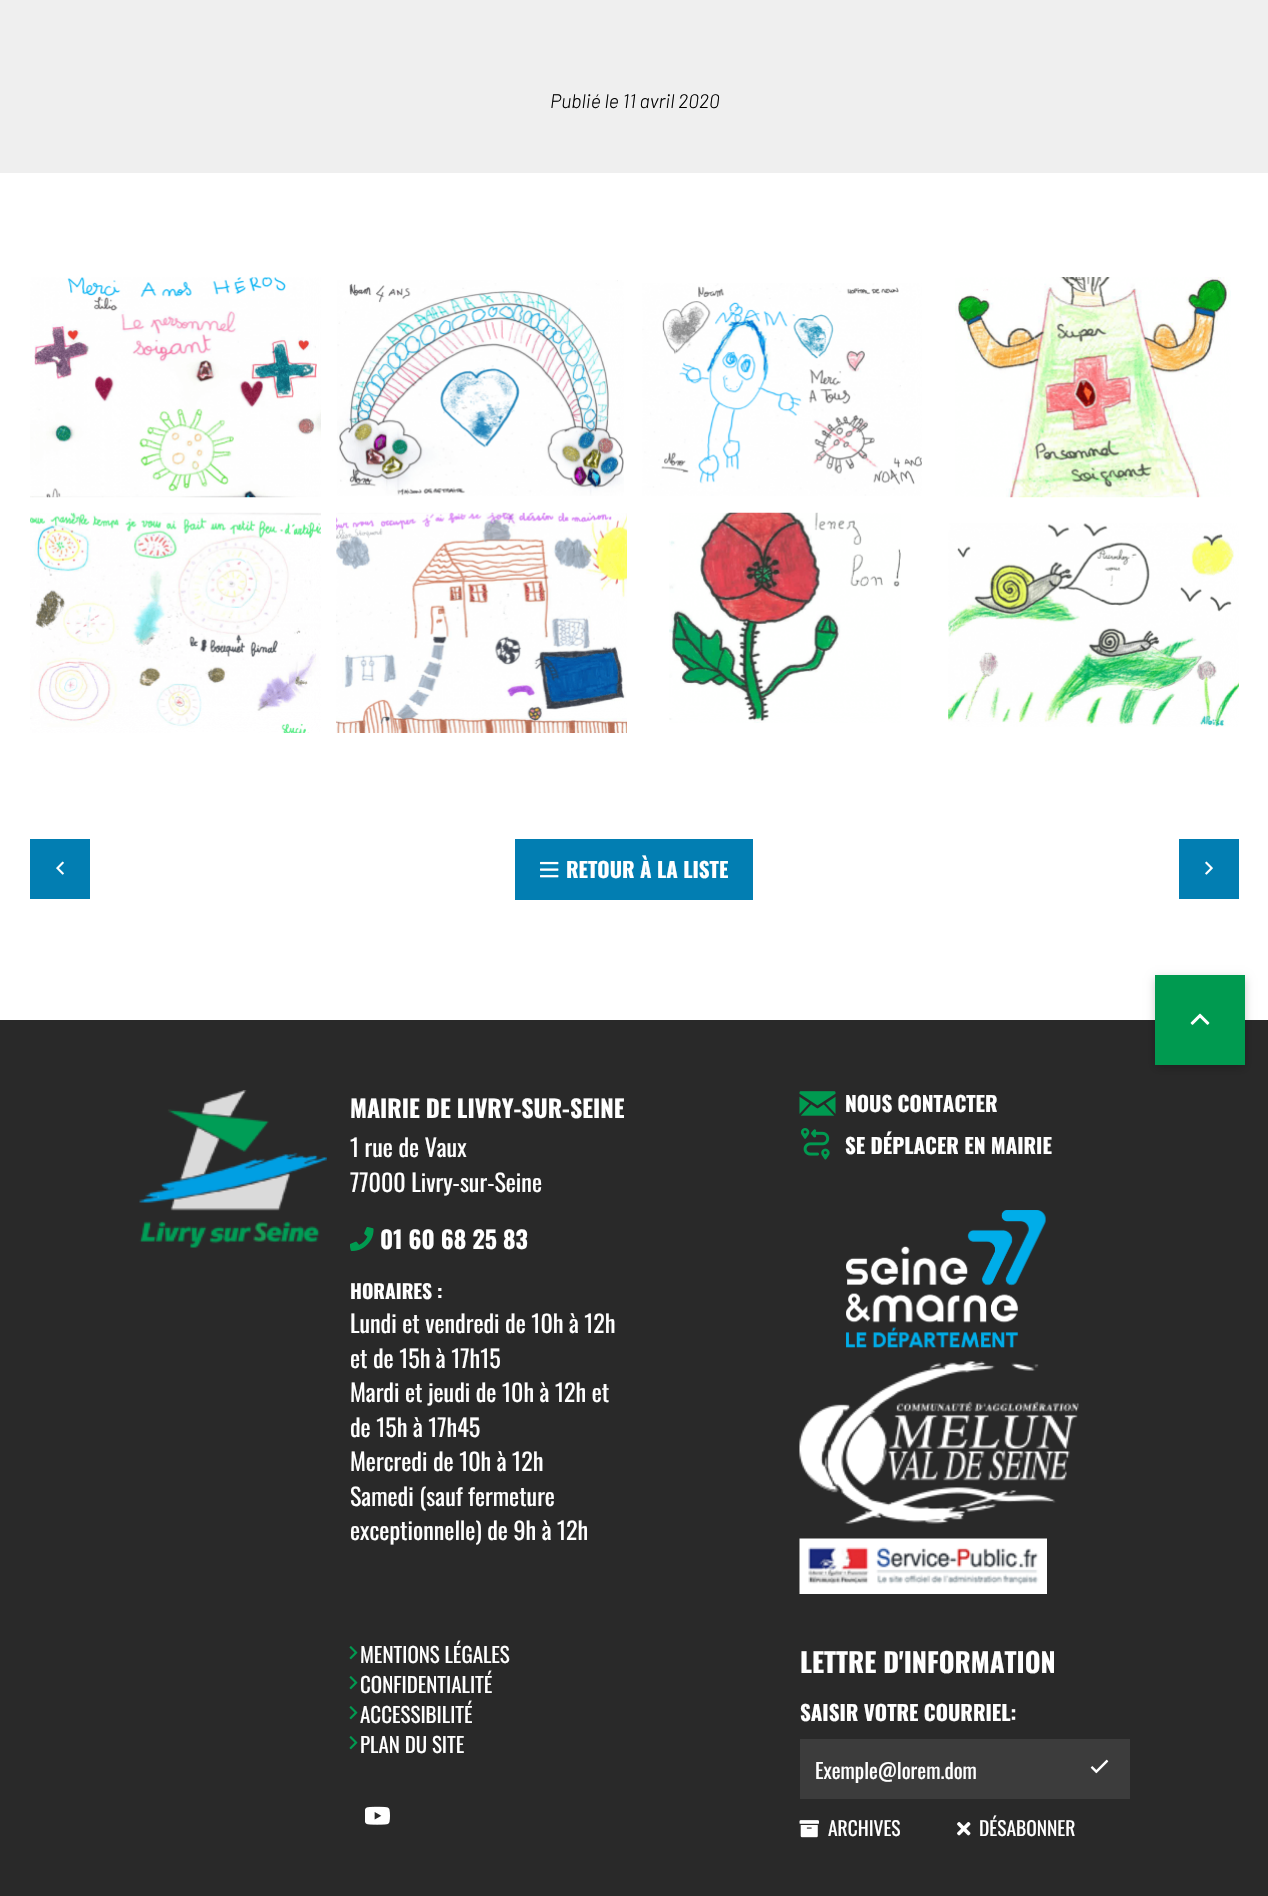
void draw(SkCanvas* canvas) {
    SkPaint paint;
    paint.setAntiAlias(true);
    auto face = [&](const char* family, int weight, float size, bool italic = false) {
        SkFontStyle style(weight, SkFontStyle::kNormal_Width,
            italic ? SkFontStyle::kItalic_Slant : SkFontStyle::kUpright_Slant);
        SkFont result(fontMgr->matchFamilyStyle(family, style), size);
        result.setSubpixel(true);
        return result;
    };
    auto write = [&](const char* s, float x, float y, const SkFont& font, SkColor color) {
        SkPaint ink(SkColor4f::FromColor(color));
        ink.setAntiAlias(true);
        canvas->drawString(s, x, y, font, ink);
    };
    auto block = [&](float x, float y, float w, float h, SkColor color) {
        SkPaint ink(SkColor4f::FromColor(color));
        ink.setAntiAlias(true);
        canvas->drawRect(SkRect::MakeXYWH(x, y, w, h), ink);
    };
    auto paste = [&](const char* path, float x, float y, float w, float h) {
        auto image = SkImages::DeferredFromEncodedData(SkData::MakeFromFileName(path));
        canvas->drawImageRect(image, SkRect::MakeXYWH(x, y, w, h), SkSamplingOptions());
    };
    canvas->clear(SK_ColorWHITE);
    block(0, 0, 1268, 173, SkColorSetRGB(239, 239, 239));
    auto kFont1 = face("Barlow", 300, 19.5f, true);
    write("Publié le 11 avril 2020", 550, 108, kFont1, SK_ColorBLACK);
    paste("pic1.png", 30, 277, 291, 221);
    paste("pic2.png", 337, 280, 287, 216);
    paste("pic3.png", 642, 283, 280, 213);
    paste("pic4.png", 955, 277, 276, 221);
    paste("pic5.png", 30, 512, 291, 221);
    paste("pic6.png", 336, 512, 291, 221);
    paste("pic7.png", 669, 512, 232, 211);
    paste("pic8.png", 948, 523, 291, 204);
    block(30, 839, 60, 60, SkColorSetRGB(2, 126, 178));
    paste("pic9.png", 56, 861, 8, 14);
    block(515, 839, 238, 61, SkColorSetRGB(2, 126, 178));
    paste("pic10.png", 540, 861, 19, 17);
    auto kFont2 = face("Oswald", 700, 21);
    write("RETOUR À LA LISTE", 566, 878, kFont2, SK_ColorWHITE);
    block(1179, 839, 60, 60, SkColorSetRGB(2, 126, 178));
    paste("pic11.png", 1205, 861, 8, 14);
    block(0, 1020, 1268, 876, SkColorSetRGB(41, 41, 41));
    paint.setColor(SkColorSetARGB(51, 0, 0, 0));
    paint.setMaskFilter(SkMaskFilter::MakeBlur(kNormal_SkBlurStyle, 4.5f));
    canvas->drawRect(SkRect::MakeXYWH(1155, 978, 90, 90), paint);
    paint.setMaskFilter(nullptr);
    block(1155, 975, 90, 90, SkColorSetRGB(0, 154, 80));
    paste("pic12.png", 1190, 1013, 20, 12);
    paste("pic13.png", 139, 1090, 188, 158);
    auto kFont3 = face("Oswald", 700, 24);
    write("MAIRIE DE LIVRY-SUR-SEINE", 350, 1118, kFont3, SK_ColorWHITE);
    auto kFont4 = face("Oswald", 400, 24);
    write("1 rue de Vaux", 350, 1157, kFont4, SK_ColorWHITE);
    write("77000 Livry-sur-Seine", 350, 1192, kFont4, SK_ColorWHITE);
    paste("pic14.png", 350, 1227, 24, 24);
    write("01 60 68 25 83", 380, 1249, kFont3, SK_ColorWHITE);
    auto kFont5 = face("Oswald", 700, 19.5f);
    write("HORAIRES :", 350, 1299, kFont5, SK_ColorWHITE);
    write("Lundi et vendredi de 10h à 12h", 350, 1333, kFont4, SK_ColorWHITE);
    write("et de 15h à 17h15", 350, 1368, kFont4, SK_ColorWHITE);
    write("Mardi et jeudi de 10h à 12h et", 350, 1402, kFont4, SK_ColorWHITE);
    write("de 15h à 17h45", 350, 1437, kFont4, SK_ColorWHITE);
    write("Mercredi de 10h à 12h", 350, 1471, kFont4, SK_ColorWHITE);
    write("Samedi (sauf fermeture", 350, 1506, kFont4, SK_ColorWHITE);
    write("exceptionnelle) de 9h à 12h", 350, 1540, kFont4, SK_ColorWHITE);
    paste("pic15.png", 799, 1091, 37, 25);
    write("NOUS CONTACTER", 845, 1112, kFont2, SK_ColorWHITE);
    paste("pic16.png", 801, 1128, 29, 32);
    write("SE DÉPLACER EN MAIRIE", 845, 1154, kFont2, SK_ColorWHITE);
    paste("pic17.png", 846, 1210, 200, 138);
    paste("pic18.png", 799, 1361, 280, 163);
    paste("pic19.png", 799, 1538, 248, 56);
    paste("pic20.png", 349, 1646, 9, 14);
    auto kFont6 = face("Oswald", 400, 21);
    write("MENTIONS LÉGALES", 360, 1663, kFont6, SK_ColorWHITE);
    paste("pic20.png", 349, 1676, 9, 14);
    write("CONFIDENTIALITÉ", 360, 1693, kFont6, SK_ColorWHITE);
    paste("pic20.png", 349, 1706, 9, 14);
    write("ACCESSIBILITÉ", 360, 1723, kFont6, SK_ColorWHITE);
    paste("pic20.png", 349, 1736, 9, 14);
    write("PLAN DU SITE", 360, 1753, kFont6, SK_ColorWHITE);
    paste("pic21.png", 365, 1806, 25, 19);
    auto kFont7 = face("Oswald", 700, 27);
    write("LETTRE D'INFORMATION", 800, 1673, kFont7, SK_ColorWHITE);
    write("SAISIR VOTRE COURRIEL:", 800, 1721, kFont2, SK_ColorWHITE);
    block(800, 1739, 330, 60, SkColorSetRGB(60, 60, 60));
    write("Exemple@lorem.dom", 815, 1779, kFont6, SK_ColorWHITE);
    paste("pic22.png", 1090, 1759, 19, 15);
    paste("pic23.png", 799, 1820, 20, 18);
    auto kFont8 = face("Oswald", 400, 19.5f);
    write("ARCHIVES", 828, 1836, kFont8, SK_ColorWHITE);
    paste("pic24.png", 957, 1822, 14, 14);
    write("DÉSABONNER", 979, 1836, kFont8, SK_ColorWHITE);
}
